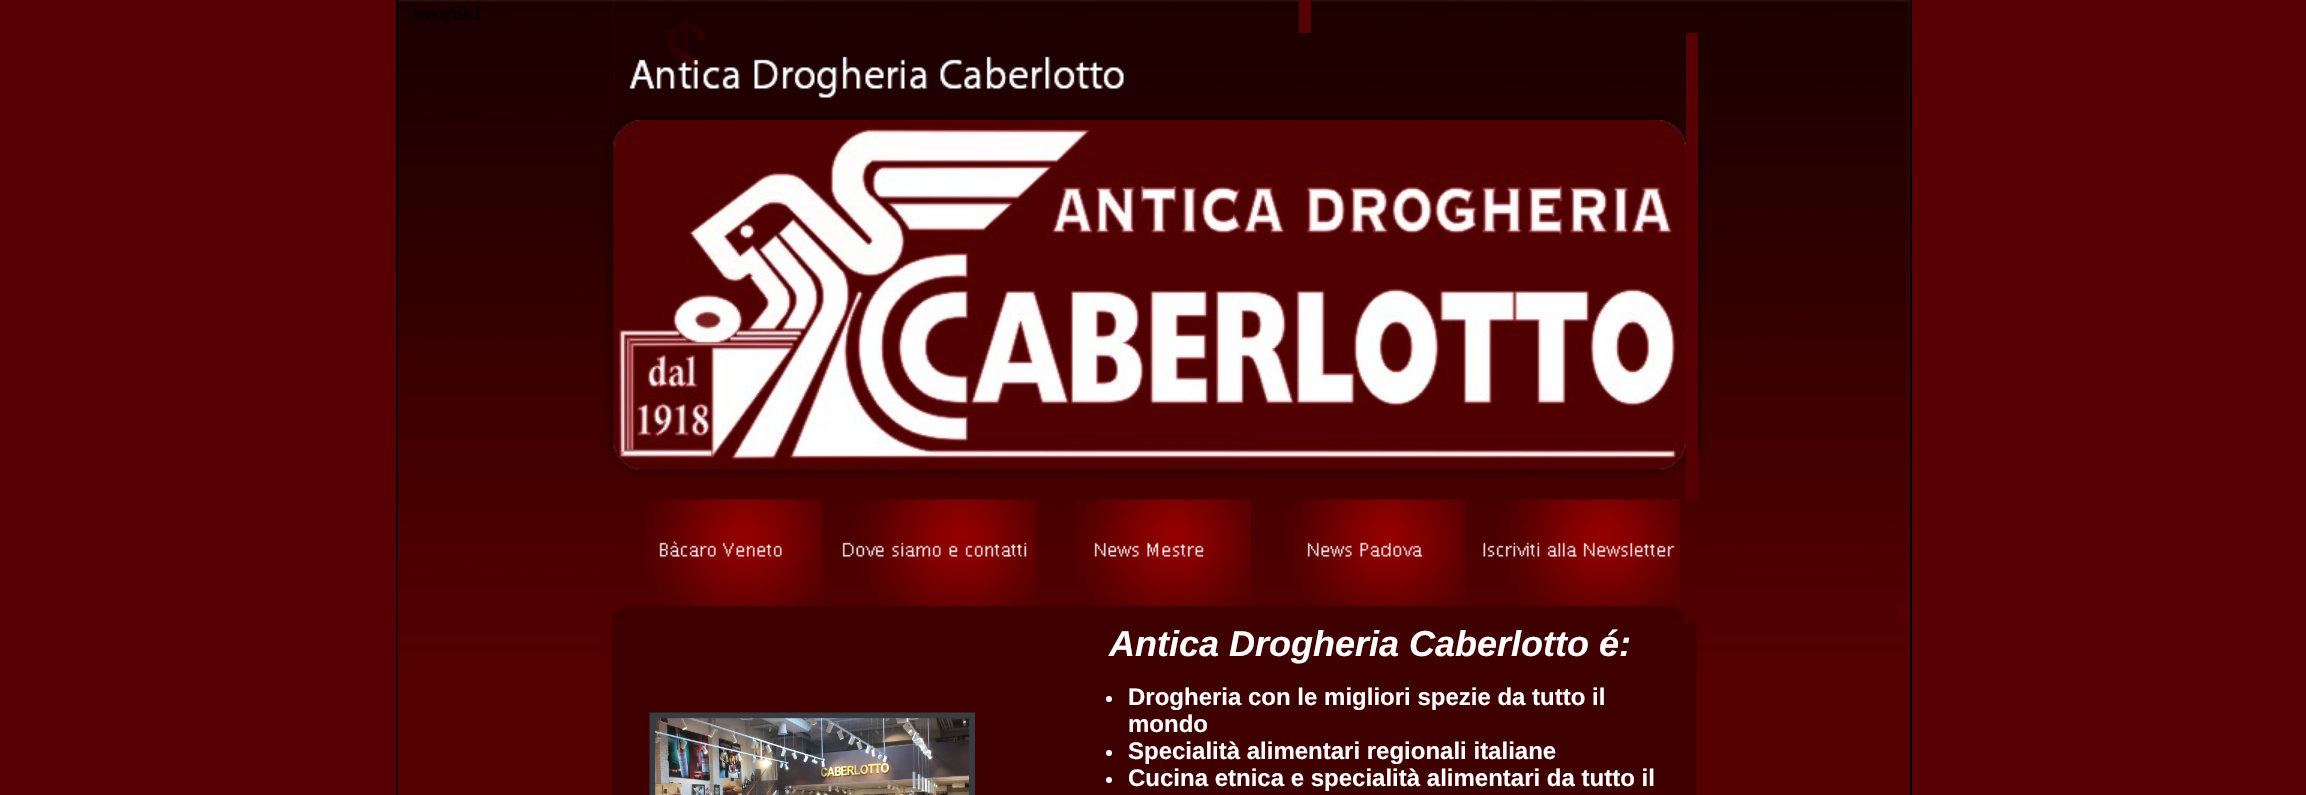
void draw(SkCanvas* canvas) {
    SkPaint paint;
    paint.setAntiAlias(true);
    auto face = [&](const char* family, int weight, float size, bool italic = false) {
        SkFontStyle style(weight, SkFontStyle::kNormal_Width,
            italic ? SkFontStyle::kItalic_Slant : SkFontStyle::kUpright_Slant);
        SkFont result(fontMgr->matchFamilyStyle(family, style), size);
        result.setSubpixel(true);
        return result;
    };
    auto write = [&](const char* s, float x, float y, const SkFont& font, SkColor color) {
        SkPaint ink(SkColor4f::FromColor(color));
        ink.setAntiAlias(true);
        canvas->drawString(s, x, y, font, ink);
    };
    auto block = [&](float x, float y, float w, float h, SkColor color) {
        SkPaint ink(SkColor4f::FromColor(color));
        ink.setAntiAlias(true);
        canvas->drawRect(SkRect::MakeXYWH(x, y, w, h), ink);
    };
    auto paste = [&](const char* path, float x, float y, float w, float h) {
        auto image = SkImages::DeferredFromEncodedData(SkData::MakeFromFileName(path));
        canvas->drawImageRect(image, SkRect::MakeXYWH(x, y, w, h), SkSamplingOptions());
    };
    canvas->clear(SkColorSetRGB(86, 0, 3));
    block(1910, 0, 2, 795, SK_ColorBLACK);
    block(396, 0, 2, 795, SK_ColorBLACK);
    paste("pic9.png", 614, 499, 1084, 107);
    paste("pic10.png", 613, 499, 215, 107);
    paste("pic1.png", 397, 0, 217, 606);
    paste("pic2.png", 613, 0, 686, 33);
    paste("pic3.png", 1311, 0, 599, 33);
    paste("pic4.png", 613, 33, 1073, 87);
    paste("pic5.png", 1698, 33, 212, 87);
    paste("pic6.png", 613, 120, 1073, 350);
    paste("pic7.png", 1698, 120, 212, 486);
    paste("pic12.png", 830, 499, 213, 107);
    paste("pic14.png", 1042, 499, 215, 107);
    paste("pic16.png", 1257, 499, 214, 107);
    paste("pic18.png", 1474, 499, 212, 107);
    paste("pic8.png", 613, 469, 1073, 31);
    paste("pic11.png", 645, 499, 177, 107);
    paste("pic13.png", 842, 499, 195, 107);
    paste("pic15.png", 1074, 499, 177, 107);
    paste("pic17.png", 1286, 499, 180, 107);
    paste("pic19.png", 1483, 499, 197, 107);
    block(643, 622, 338, 173, SkColorSetRGB(62, 0, 1));
    block(1068, 622, 605, 173, SkColorSetRGB(62, 0, 1));
    paste("pic20.png", 397, 606, 1500, 17);
    paste("pic21.png", 397, 622, 246, 173);
    paste("pic22.png", 649, 712, 326, 83);
    block(981, 622, 87, 173, SkColorSetRGB(62, 0, 1));
    auto kFont1 = face("Liberation Sans", 700, 36, true);
    write("Antica Drogheria Caberlotto é:", 1109, 656, kFont1, SK_ColorWHITE);
    paint.setColor(SK_ColorWHITE);
    canvas->drawCircle(1109, 699, 3, paint);
    auto kFont2 = face("Liberation Sans", 700, 24);
    write("Drogheria con le migliori spezie da tutto il", 1128, 705, kFont2, SK_ColorWHITE);
    write("mondo", 1128, 732, kFont2, SK_ColorWHITE);
    canvas->drawCircle(1109, 753, 3, paint);
    write("Specialità alimentari regionali italiane", 1128, 759, kFont2, SK_ColorWHITE);
    canvas->drawCircle(1109, 780, 3, paint);
    write("Cucina etnica e specialità alimentari da tutto il", 1128, 786, kFont2, SK_ColorWHITE);
    paste("pic23.png", 1673, 622, 236, 173);
}
